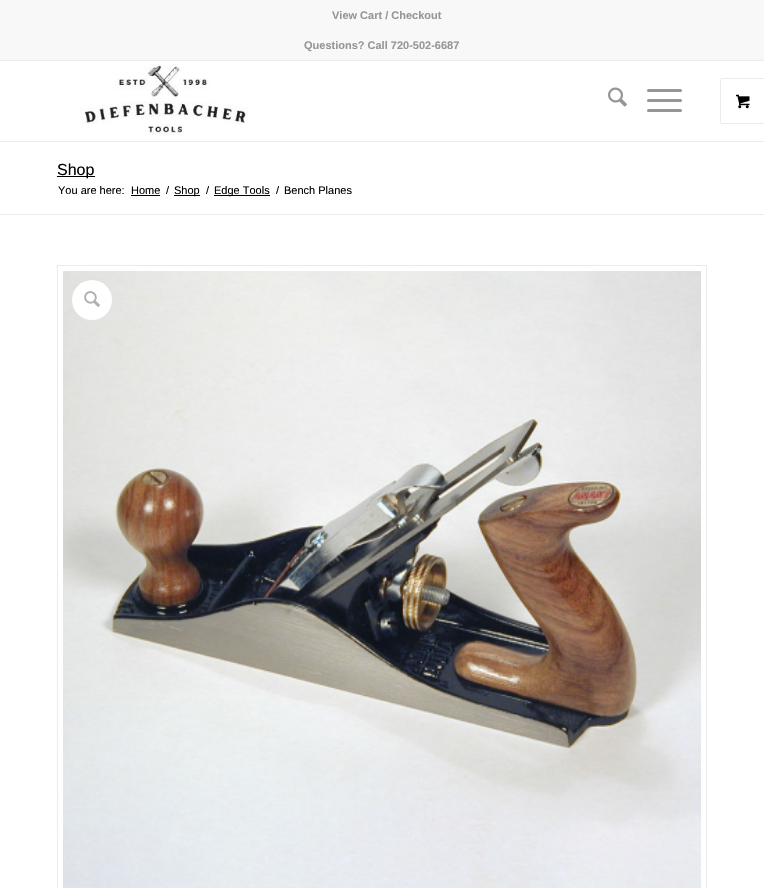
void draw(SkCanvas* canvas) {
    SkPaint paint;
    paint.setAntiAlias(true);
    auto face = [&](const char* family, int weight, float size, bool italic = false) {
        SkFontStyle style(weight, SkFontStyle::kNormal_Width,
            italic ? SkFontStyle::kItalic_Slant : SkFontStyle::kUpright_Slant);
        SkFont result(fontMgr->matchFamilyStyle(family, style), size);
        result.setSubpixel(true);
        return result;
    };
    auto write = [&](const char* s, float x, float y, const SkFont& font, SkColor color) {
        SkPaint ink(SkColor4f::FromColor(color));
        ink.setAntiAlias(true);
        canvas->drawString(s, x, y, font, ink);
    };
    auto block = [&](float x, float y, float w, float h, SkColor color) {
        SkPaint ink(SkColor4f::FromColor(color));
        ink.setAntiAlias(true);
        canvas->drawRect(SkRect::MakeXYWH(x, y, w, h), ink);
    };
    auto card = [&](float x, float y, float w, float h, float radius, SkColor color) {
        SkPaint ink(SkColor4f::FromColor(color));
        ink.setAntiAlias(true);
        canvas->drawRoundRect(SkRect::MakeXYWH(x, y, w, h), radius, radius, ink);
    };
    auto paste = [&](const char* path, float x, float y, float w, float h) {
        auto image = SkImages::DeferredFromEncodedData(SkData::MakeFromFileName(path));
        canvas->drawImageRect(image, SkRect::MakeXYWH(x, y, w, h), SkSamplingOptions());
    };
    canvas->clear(SK_ColorWHITE);
    block(0, 0, 764, 60, SkColorSetRGB(248, 248, 248));
    block(0, 60, 764, 1, SkColorSetRGB(235, 235, 235));
    auto kFont1 = face("Liberation Sans", 700, 11);
    write("View Cart / Checkout", 332, 19, kFont1, SkColorSetRGB(150, 150, 150));
    write("Questions? Call 720-502-6687", 304, 49, kFont1, SkColorSetRGB(150, 150, 150));
    block(0, 141, 764, 1, SkColorSetRGB(235, 235, 235));
    paste("pic1.png", 80, 64, 168, 72);
    paste("pic2.png", 608, 87, 19, 20);
    card(647, 99, 35, 3, 1.5f, SkColorSetRGB(150, 150, 150));
    card(647, 89, 35, 3, 1.5f, SkColorSetRGB(150, 150, 150));
    card(647, 109, 35, 3, 1.5f, SkColorSetRGB(150, 150, 150));
    paint.setStyle(SkPaint::kStroke_Style);
    paint.setStrokeWidth(1);
    paint.setColor(SkColorSetRGB(235, 235, 235));
    canvas->drawRoundRect(SkRect::MakeXYWH(720.5f, 78.5f, 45, 45), 1.5f, 1.5f, paint);
    block(721, 79, 1, 44, SK_ColorWHITE);
    paste("pic3.png", 736, 94, 14, 15);
    block(57, 176, 38, 1, SK_ColorBLACK);
    auto kFont2 = face("Liberation Sans", 400, 16);
    write("Shop", 57, 175, kFont2, SK_ColorBLACK);
    auto kFont3 = face("Liberation Sans", 400, 11);
    write("You are here:", 58, 194, kFont3, SK_ColorBLACK);
    write("Home", 131, 194, kFont3, SK_ColorBLACK);
    block(131, 195, 29, 1, SK_ColorBLACK);
    write("/", 166, 194, kFont3, SK_ColorBLACK);
    block(174, 195, 26, 1, SK_ColorBLACK);
    write("Shop", 174, 194, kFont3, SK_ColorBLACK);
    write("/", 206, 194, kFont3, SK_ColorBLACK);
    block(214, 195, 56, 1, SK_ColorBLACK);
    write("Edge Tools", 214, 194, kFont3, SK_ColorBLACK);
    write("/", 276, 194, kFont3, SK_ColorBLACK);
    write("Bench Planes", 284, 194, kFont3, SK_ColorBLACK);
    block(0, 214, 764, 1, SkColorSetRGB(235, 235, 235));
    canvas->drawRect(SkRect::MakeXYWH(57.5f, 265.5f, 649, 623), paint);
    paste("pic4.png", 63, 271, 638, 617);
    paint.setStyle(SkPaint::kFill_Style);
    paint.setColor(SK_ColorWHITE);
    canvas->drawCircle(92, 300, 20, paint);
    paste("pic5.png", 84, 291, 16, 16);
}
